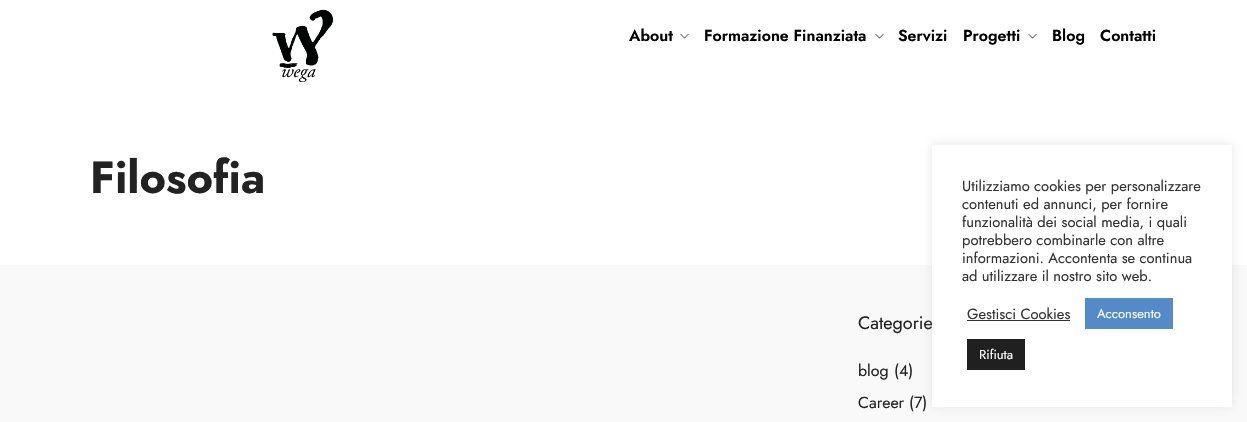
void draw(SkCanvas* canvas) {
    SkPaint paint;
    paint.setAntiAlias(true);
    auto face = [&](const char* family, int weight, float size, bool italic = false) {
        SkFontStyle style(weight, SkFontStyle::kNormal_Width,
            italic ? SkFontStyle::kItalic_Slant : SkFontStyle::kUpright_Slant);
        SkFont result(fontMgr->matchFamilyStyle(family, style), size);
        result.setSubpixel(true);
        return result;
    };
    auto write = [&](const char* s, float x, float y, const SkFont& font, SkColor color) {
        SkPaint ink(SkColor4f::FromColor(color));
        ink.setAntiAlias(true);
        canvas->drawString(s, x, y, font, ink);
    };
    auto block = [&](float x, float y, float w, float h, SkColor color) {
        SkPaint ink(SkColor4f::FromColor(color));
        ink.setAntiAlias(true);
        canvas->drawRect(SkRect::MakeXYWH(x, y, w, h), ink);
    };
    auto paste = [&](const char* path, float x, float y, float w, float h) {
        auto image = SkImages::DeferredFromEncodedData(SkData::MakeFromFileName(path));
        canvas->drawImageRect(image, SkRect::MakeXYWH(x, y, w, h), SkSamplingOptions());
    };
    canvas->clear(SkColorSetRGB(249, 249, 249));
    block(0, 0, 1247, 265, SK_ColorWHITE);
    paste("pic1.png", 272, 9, 62, 74);
    auto kFont1 = face("Jost", 600, 16);
    write("About", 629, 41, kFont1, SK_ColorBLACK);
    paste("pic2.png", 680, 34, 9, 5);
    write("Formazione Finanziata", 704, 41, kFont1, SK_ColorBLACK);
    paste("pic2.png", 875, 34, 9, 5);
    write("Servizi", 898, 41, kFont1, SK_ColorBLACK);
    write("Progetti", 963, 41, kFont1, SK_ColorBLACK);
    paste("pic2.png", 1028, 34, 9, 5);
    write("Blog", 1052, 41, kFont1, SK_ColorBLACK);
    write("Contatti", 1100, 41, kFont1, SK_ColorBLACK);
    auto kFont2 = face("Jost", 700, 45);
    write("Filosofia", 90, 193, kFont2, SkColorSetRGB(34, 34, 34));
    auto kFont3 = face("Jost", 400, 18);
    write("Categorie", 858, 329, kFont3, SkColorSetRGB(34, 34, 34));
    auto kFont4 = face("Jost", 400, 16);
    write("blog", 858, 376, kFont4, SkColorSetRGB(34, 34, 34));
    write("(4)", 894, 376, kFont4, SkColorSetRGB(34, 34, 34));
    write("Career", 858, 408, kFont4, SkColorSetRGB(34, 34, 34));
    write("(7)", 909, 408, kFont4, SkColorSetRGB(34, 34, 34));
    paint.setColor(SkColorSetARGB(77, 172, 171, 171));
    paint.setMaskFilter(SkMaskFilter::MakeBlur(kNormal_SkBlurStyle, 5));
    canvas->drawRect(SkRect::MakeXYWH(932, 144, 300, 262), paint);
    paint.setMaskFilter(nullptr);
    block(932, 145, 300, 262, SK_ColorWHITE);
    auto kFont5 = face("Jost", 400, 14.7f);
    write("Utilizziamo cookies per personalizzare", 962, 191, kFont5, SkColorSetRGB(51, 51, 51));
    write("contenuti ed annunci, per fornire", 962, 209, kFont5, SkColorSetRGB(51, 51, 51));
    write("funzionalità dei social media, i quali", 962, 227, kFont5, SkColorSetRGB(51, 51, 51));
    write("potrebbero combinarle con altre", 962, 245, kFont5, SkColorSetRGB(51, 51, 51));
    write("informazioni. Accontenta se continua", 962, 263, kFont5, SkColorSetRGB(51, 51, 51));
    write("ad utilizzare il nostro sito web.", 962, 281, kFont5, SkColorSetRGB(51, 51, 51));
    write("Gestisci Cookies", 967, 319, kFont5, SkColorSetRGB(51, 51, 51));
    block(967, 320, 103, 1, SkColorSetRGB(51, 51, 51));
    block(1085, 298, 88, 31, SkColorSetRGB(83, 139, 201));
    auto kFont6 = face("Jost", 400, 13);
    write("Acconsento", 1097, 318, kFont6, SK_ColorWHITE);
    block(967, 339, 58, 31, SkColorSetRGB(32, 32, 32));
    write("Rifiuta", 979, 359, kFont6, SK_ColorWHITE);
}
